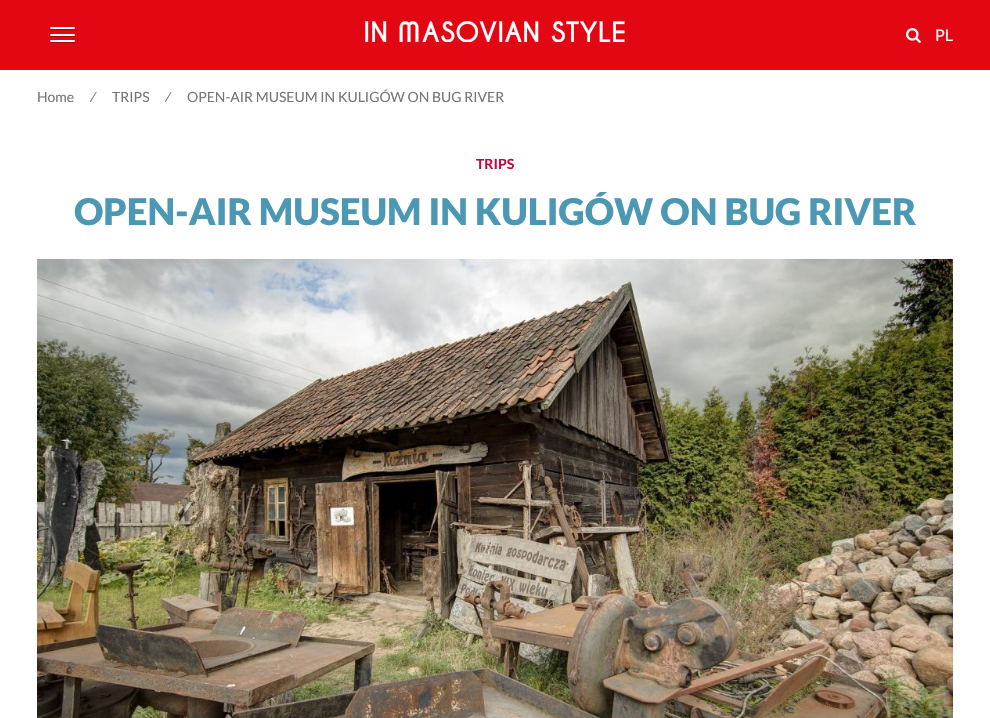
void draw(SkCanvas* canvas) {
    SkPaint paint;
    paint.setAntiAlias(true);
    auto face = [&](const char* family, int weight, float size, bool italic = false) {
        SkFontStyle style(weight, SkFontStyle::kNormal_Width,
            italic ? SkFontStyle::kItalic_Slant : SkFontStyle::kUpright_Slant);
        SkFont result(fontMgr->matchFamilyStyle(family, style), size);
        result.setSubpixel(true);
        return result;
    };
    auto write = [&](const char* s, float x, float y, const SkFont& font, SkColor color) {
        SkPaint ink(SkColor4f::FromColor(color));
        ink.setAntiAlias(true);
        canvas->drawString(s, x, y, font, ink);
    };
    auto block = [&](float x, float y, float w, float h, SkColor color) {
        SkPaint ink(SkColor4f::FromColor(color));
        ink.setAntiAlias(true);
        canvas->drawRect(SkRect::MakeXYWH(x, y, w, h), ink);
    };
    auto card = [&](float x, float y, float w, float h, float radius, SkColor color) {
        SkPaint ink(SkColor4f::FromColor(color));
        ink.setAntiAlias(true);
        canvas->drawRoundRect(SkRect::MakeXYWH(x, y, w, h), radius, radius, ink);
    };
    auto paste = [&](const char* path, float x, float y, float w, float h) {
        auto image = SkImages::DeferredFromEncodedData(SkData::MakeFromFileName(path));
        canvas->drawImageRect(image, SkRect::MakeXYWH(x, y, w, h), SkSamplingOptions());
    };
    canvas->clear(SK_ColorWHITE);
    block(0, 0, 990, 70, SkColorSetRGB(227, 6, 19));
    paint.setColor(SkColorSetRGB(170, 5, 14));
    canvas->drawPath(SkPathBuilder().moveTo(50, 28.5f).cubicTo(50, 29, 50, 30, 51, 30).lineTo(70, 30).cubicTo(73, 30, 76, 30.5f, 75, 28.5f).lineTo(74, 29).lineTo(51, 29).close().detach(), paint);
    card(50, 27, 25, 2, 1, SK_ColorWHITE);
    canvas->drawPath(SkPathBuilder().moveTo(50, 35.5f).cubicTo(50, 36, 50, 37, 51, 37).lineTo(70, 37).cubicTo(73, 37, 76, 37.5f, 75, 35.5f).lineTo(74, 36).lineTo(51, 36).close().detach(), paint);
    card(50, 34, 25, 2, 1, SK_ColorWHITE);
    canvas->drawPath(SkPathBuilder().moveTo(50, 41.5f).cubicTo(50, 42, 50, 43, 51, 43).lineTo(70, 43).cubicTo(73, 43, 76, 43.5f, 75, 41.5f).lineTo(74, 42).lineTo(51, 42).close().detach(), paint);
    card(50, 40, 25, 2, 1, SK_ColorWHITE);
    paste("pic1.png", 365, 21, 260, 21);
    paste("pic2.png", 906, 28, 15, 15);
    auto kFont1 = face("Lato", 400, 16);
    write("PL", 935, 41, kFont1, SK_ColorWHITE);
    auto kFont2 = face("Lato", 400, 14);
    write("Home", 37, 102, kFont2, SkColorSetRGB(118, 118, 118));
    write("⁄", 91, 102, kFont2, SkColorSetRGB(118, 118, 118));
    write("TRIPS", 112, 102, kFont2, SkColorSetRGB(118, 118, 118));
    write("⁄", 166, 102, kFont2, SkColorSetRGB(118, 118, 118));
    write("OPEN-AIR MUSEUM IN KULIGÓW ON BUG RIVER", 187, 102, kFont2, SkColorSetRGB(118, 118, 118));
    auto kFont3 = face("Lato", 700, 14);
    write("TRIPS", 476, 169, kFont3, SkColorSetRGB(195, 7, 63));
    auto kFont4 = face("Lato", 900, 36.65f);
    write("OPEN-AIR MUSEUM IN KULIGÓW ON BUG RIVER", 74, 225, kFont4, SkColorSetRGB(75, 152, 180));
    paste("pic3.png", 37, 259, 916, 459);
}
